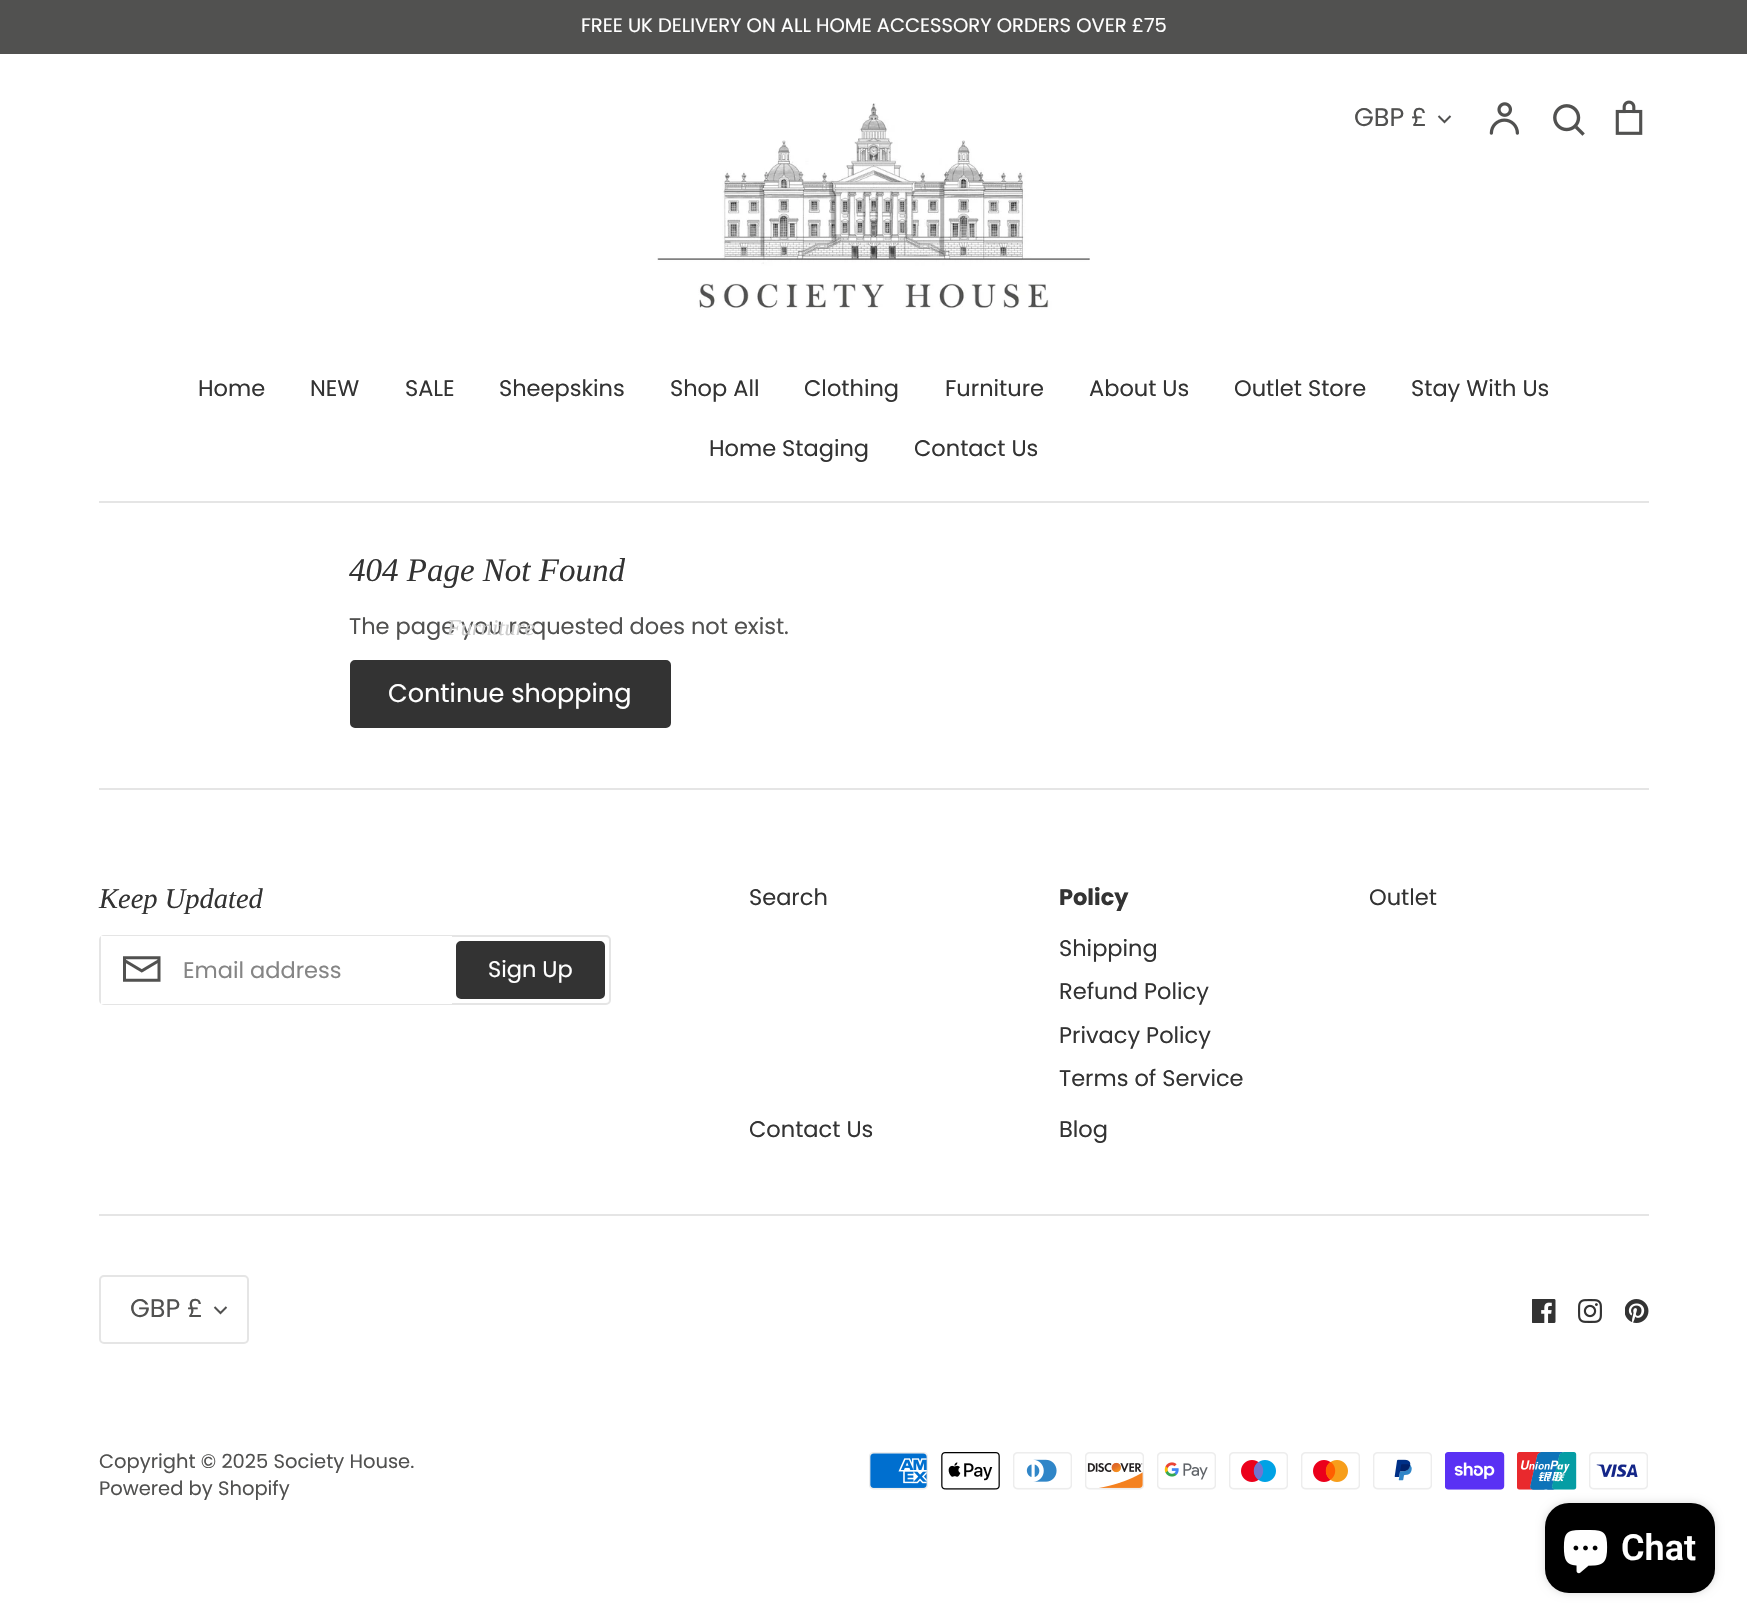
void draw(SkCanvas* canvas) {
    SkPaint paint;
    paint.setAntiAlias(true);
    auto face = [&](const char* family, int weight, float size, bool italic = false) {
        SkFontStyle style(weight, SkFontStyle::kNormal_Width,
            italic ? SkFontStyle::kItalic_Slant : SkFontStyle::kUpright_Slant);
        SkFont result(fontMgr->matchFamilyStyle(family, style), size);
        result.setSubpixel(true);
        return result;
    };
    auto write = [&](const char* s, float x, float y, const SkFont& font, SkColor color) {
        SkPaint ink(SkColor4f::FromColor(color));
        ink.setAntiAlias(true);
        canvas->drawString(s, x, y, font, ink);
    };
    auto block = [&](float x, float y, float w, float h, SkColor color) {
        SkPaint ink(SkColor4f::FromColor(color));
        ink.setAntiAlias(true);
        canvas->drawRect(SkRect::MakeXYWH(x, y, w, h), ink);
    };
    auto card = [&](float x, float y, float w, float h, float radius, SkColor color) {
        SkPaint ink(SkColor4f::FromColor(color));
        ink.setAntiAlias(true);
        canvas->drawRoundRect(SkRect::MakeXYWH(x, y, w, h), radius, radius, ink);
    };
    auto paste = [&](const char* path, float x, float y, float w, float h) {
        auto image = SkImages::DeferredFromEncodedData(SkData::MakeFromFileName(path));
        canvas->drawImageRect(image, SkRect::MakeXYWH(x, y, w, h), SkSamplingOptions());
    };
    canvas->clear(SK_ColorWHITE);
    block(0, 0, 1747, 54, SkColorSetRGB(81, 81, 80));
    auto kFont1 = face("Poppins", 400, 19.5f);
    write("FREE UK DELIVERY ON ALL HOME ACCESSORY ORDERS OVER £75", 581, 32, kFont1, SK_ColorWHITE);
    paste("pic1.png", 657, 103, 433, 207);
    auto kFont2 = face("Poppins", 400, 25.5f);
    write("GBP £", 1354, 126, kFont2, SkColorSetRGB(81, 81, 80));
    paint.setStyle(SkPaint::kStroke_Style);
    paint.setStrokeWidth(2);
    paint.setColor(SkColorSetRGB(81, 81, 80));
    canvas->drawPath(SkPathBuilder().moveTo(1438.5f, 116).lineTo(1444.5f, 122).lineTo(1450.5f, 116).detach(), paint);
    paste("pic2.png", 1489, 102, 30, 33);
    paste("pic3.png", 1615, 100, 28, 35);
    paste("pic4.png", 1553, 104, 32, 32);
    auto kFont3 = face("Poppins", 400, 22.5f);
    write("The page you requested does not exist.", 349, 634, kFont3, SkColorSetRGB(81, 81, 80));
    auto kFont4 = face("Liberation Serif", 400, 22.5f, true);
    write("Furniture", 447, 635, kFont4, SkColorSetRGB(204, 204, 204));
    block(99, 501, 1550, 2, SkColorSetRGB(229, 229, 229));
    write("Home", 198, 396, kFont3, SkColorSetRGB(51, 51, 51));
    write("NEW", 310, 396, kFont3, SkColorSetRGB(51, 51, 51));
    write("SALE", 405, 396, kFont3, SkColorSetRGB(51, 51, 51));
    write("Sheepskins", 499, 396, kFont3, SkColorSetRGB(51, 51, 51));
    write("Shop All", 670, 396, kFont3, SkColorSetRGB(51, 51, 51));
    write("Clothing", 804, 396, kFont3, SkColorSetRGB(51, 51, 51));
    write("Furniture", 945, 396, kFont3, SkColorSetRGB(51, 51, 51));
    write("About Us", 1089, 396, kFont3, SkColorSetRGB(51, 51, 51));
    write("Outlet Store", 1234, 396, kFont3, SkColorSetRGB(51, 51, 51));
    write("Stay With Us", 1411, 396, kFont3, SkColorSetRGB(51, 51, 51));
    write("Home Staging", 709, 456, kFont3, SkColorSetRGB(51, 51, 51));
    write("Contact Us", 914, 456, kFont3, SkColorSetRGB(51, 51, 51));
    auto kFont5 = face("Liberation Serif", 400, 33, true);
    write("404 Page Not Found", 349, 581, kFont5, SkColorSetRGB(51, 51, 51));
    paint.setStyle(SkPaint::kFill_Style);
    paint.setColor(SkColorSetRGB(51, 51, 51));
    canvas->drawRoundRect(SkRect::MakeXYWH(351, 661, 319, 66), 4, 4, paint);
    paint.setStyle(SkPaint::kStroke_Style);
    canvas->drawRoundRect(SkRect::MakeXYWH(351, 661, 319, 66), 4, 4, paint);
    write("Continue shopping", 388, 702, kFont2, SK_ColorWHITE);
    block(99, 788, 1550, 2, SkColorSetRGB(229, 229, 229));
    auto kFont6 = face("Liberation Serif", 400, 28.5f, true);
    write("Keep Updated", 99, 908, kFont6, SkColorSetRGB(51, 51, 51));
    paint.setColor(SkColorSetRGB(229, 229, 229));
    canvas->drawRoundRect(SkRect::MakeXYWH(100, 936, 510, 68), 4, 4, paint);
    block(101, 936, 351, 68, SK_ColorWHITE);
    paste("pic5.png", 123, 956, 38, 26);
    write("Email address", 183, 978, kFont3, SkColorSetRGB(133, 133, 133));
    paint.setStyle(SkPaint::kFill_Style);
    paint.setColor(SkColorSetRGB(51, 51, 51));
    canvas->drawRoundRect(SkRect::MakeXYWH(457, 942, 147, 56), 4, 4, paint);
    paint.setStyle(SkPaint::kStroke_Style);
    canvas->drawRoundRect(SkRect::MakeXYWH(457, 942, 147, 56), 4, 4, paint);
    write("Sign Up", 488, 977, kFont3, SK_ColorWHITE);
    write("Search", 749, 905, kFont3, SkColorSetRGB(51, 51, 51));
    auto kFont7 = face("Poppins", 700, 22.5f);
    write("Policy", 1059, 905, kFont7, SkColorSetRGB(51, 51, 51));
    write("Shipping", 1059, 956, kFont3, SkColorSetRGB(51, 51, 51));
    write("Refund Policy", 1059, 999, kFont3, SkColorSetRGB(51, 51, 51));
    write("Privacy Policy", 1059, 1043, kFont3, SkColorSetRGB(51, 51, 51));
    write("Terms of Service", 1059, 1086, kFont3, SkColorSetRGB(51, 51, 51));
    write("Outlet", 1369, 905, kFont3, SkColorSetRGB(51, 51, 51));
    write("Contact Us", 749, 1137, kFont3, SkColorSetRGB(51, 51, 51));
    write("Blog", 1059, 1137, kFont3, SkColorSetRGB(51, 51, 51));
    block(99, 1214, 1550, 2, SkColorSetRGB(229, 229, 229));
    paint.setColor(SkColorSetRGB(229, 229, 229));
    canvas->drawRoundRect(SkRect::MakeXYWH(100, 1276, 148, 67), 4, 4, paint);
    write("GBP £", 130, 1317, kFont2, SkColorSetRGB(81, 81, 80));
    paint.setColor(SkColorSetRGB(81, 81, 80));
    canvas->drawPath(SkPathBuilder().moveTo(214.5f, 1307).lineTo(220.5f, 1313).lineTo(226.5f, 1307).detach(), paint);
    paste("pic6.png", 1532, 1299, 24, 24);
    paste("pic7.png", 1578, 1299, 24, 24);
    paste("pic8.png", 1625, 1299, 24, 24);
    write("Copyright © 2025 Society House.", 99, 1468, kFont1, SkColorSetRGB(81, 81, 80));
    write("Powered by Shopify", 99, 1495, kFont1, SkColorSetRGB(81, 81, 80));
    paste("pic9.png", 869, 1452, 59, 38);
    paste("pic10.png", 941, 1452, 59, 38);
    paste("pic11.png", 1013, 1452, 59, 38);
    paste("pic12.png", 1085, 1452, 59, 38);
    paste("pic13.png", 1157, 1452, 59, 38);
    paste("pic14.png", 1229, 1452, 59, 38);
    paste("pic15.png", 1301, 1452, 59, 38);
    paste("pic16.png", 1373, 1452, 59, 38);
    paste("pic17.png", 1445, 1452, 60, 38);
    paste("pic18.png", 1517, 1452, 60, 38);
    paste("pic19.png", 1589, 1452, 59, 38);
    paint.setStyle(SkPaint::kFill_Style);
    paint.setColor(SkColorSetARGB(38, 0, 0, 0));
    paint.setMaskFilter(SkMaskFilter::MakeBlur(kNormal_SkBlurStyle, 4));
    canvas->drawRoundRect(SkRect::MakeXYWH(1545, 1503, 170, 90), 24, 24, paint);
    paint.setMaskFilter(nullptr);
    card(1545, 1503, 170, 90, 24, SK_ColorBLACK);
    paste("pic20.png", 1563, 1530, 45, 44);
    auto kFont8 = face("Roboto", 600, 36);
    write("Chat", 1621, 1560, kFont8, SK_ColorWHITE);
}
